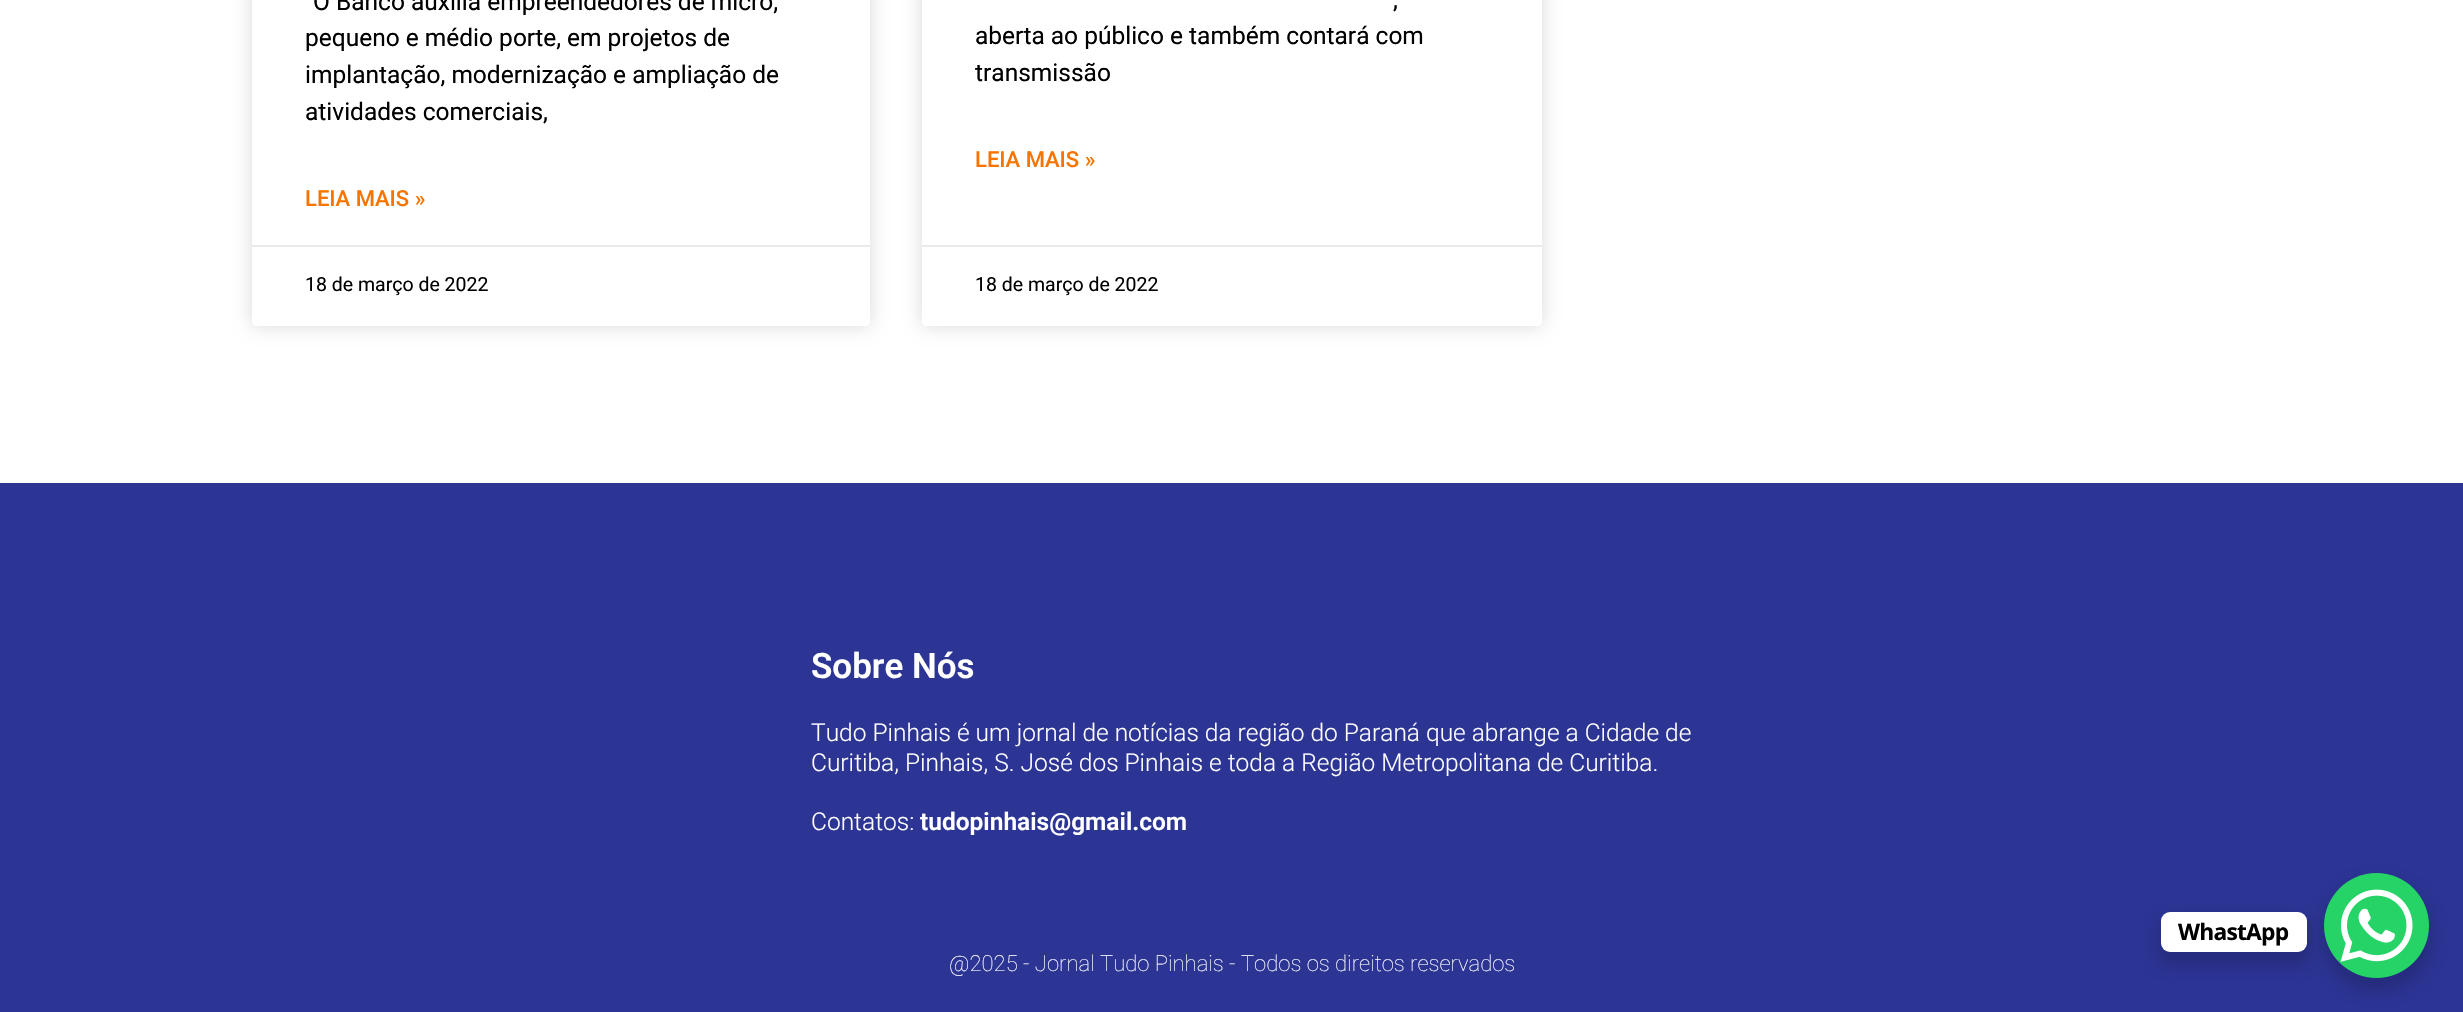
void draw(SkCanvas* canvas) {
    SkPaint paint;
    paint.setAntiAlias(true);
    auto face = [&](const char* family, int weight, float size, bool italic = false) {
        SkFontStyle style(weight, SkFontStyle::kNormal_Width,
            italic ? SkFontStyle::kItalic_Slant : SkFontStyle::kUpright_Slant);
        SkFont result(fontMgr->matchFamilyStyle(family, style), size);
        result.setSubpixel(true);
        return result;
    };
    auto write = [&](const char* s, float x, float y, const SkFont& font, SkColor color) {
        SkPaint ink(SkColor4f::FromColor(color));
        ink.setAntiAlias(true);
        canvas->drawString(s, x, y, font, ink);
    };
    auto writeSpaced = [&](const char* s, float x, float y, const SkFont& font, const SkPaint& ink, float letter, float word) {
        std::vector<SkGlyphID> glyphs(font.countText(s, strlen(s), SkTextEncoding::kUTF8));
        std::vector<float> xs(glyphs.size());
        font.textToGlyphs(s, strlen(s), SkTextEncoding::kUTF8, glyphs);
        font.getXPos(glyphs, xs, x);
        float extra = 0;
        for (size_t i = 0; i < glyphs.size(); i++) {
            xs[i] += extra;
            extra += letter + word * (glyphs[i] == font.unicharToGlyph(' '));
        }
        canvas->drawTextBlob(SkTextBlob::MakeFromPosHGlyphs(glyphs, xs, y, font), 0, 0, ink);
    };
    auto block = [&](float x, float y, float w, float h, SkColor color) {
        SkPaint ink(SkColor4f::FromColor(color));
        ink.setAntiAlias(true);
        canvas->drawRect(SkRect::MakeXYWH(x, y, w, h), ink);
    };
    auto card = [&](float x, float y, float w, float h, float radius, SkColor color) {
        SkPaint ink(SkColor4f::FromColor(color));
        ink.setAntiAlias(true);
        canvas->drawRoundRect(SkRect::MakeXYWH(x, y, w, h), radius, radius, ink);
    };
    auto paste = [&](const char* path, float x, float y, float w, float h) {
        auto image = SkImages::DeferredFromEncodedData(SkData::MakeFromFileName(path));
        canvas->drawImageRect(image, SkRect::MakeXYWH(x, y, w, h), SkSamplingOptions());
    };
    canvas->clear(SK_ColorWHITE);
    canvas->save();
    canvas->clipPath(SkPathBuilder(SkPathFillType::kEvenOdd).moveTo(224, 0).lineTo(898, 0).lineTo(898, 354).lineTo(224, 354).close().moveTo(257, -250).lineTo(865, -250).cubicTo(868, -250, 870, -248, 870, -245).lineTo(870, 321).cubicTo(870, 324, 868, 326, 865, 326).lineTo(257, 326).cubicTo(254, 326, 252, 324, 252, 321).lineTo(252, -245).cubicTo(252, -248, 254, -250, 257, -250).close().detach(), true);
    paint.setColor(SkColorSetARGB(38, 0, 0, 0));
    paint.setMaskFilter(SkMaskFilter::MakeBlur(kNormal_SkBlurStyle, 9));
    canvas->drawRoundRect(SkRect::MakeXYWH(252, -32, 618, 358), 5, 5, paint);
    paint.setMaskFilter(nullptr);
    canvas->restore();
    auto kFont1 = face("Roboto", 400, 24.5f);
    write("O Banco auxilia empreendedores de micro,", 313, 10, kFont1, SK_ColorBLACK);
    write("pequeno e médio porte, em projetos de", 305, 46, kFont1, SK_ColorBLACK);
    write("implantação, modernização e ampliação de", 305, 83, kFont1, SK_ColorBLACK);
    write("atividades comerciais,", 305, 120, kFont1, SK_ColorBLACK);
    auto kFont2 = face("Roboto", 500, 22.05f);
    write("LEIA MAIS »", 305, 206, kFont2, SkColorSetRGB(246, 116, 0));
    block(252, 245, 618, 2, SkColorSetRGB(234, 234, 234));
    auto kFont3 = face("Roboto", 400, 19.5f);
    write("18 de março de 2022", 305, 291, kFont3, SK_ColorBLACK);
    canvas->save();
    canvas->clipPath(SkPathBuilder(SkPathFillType::kEvenOdd).moveTo(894, 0).lineTo(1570, 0).lineTo(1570, 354).lineTo(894, 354).close().moveTo(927, -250).lineTo(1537, -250).cubicTo(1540, -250, 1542, -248, 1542, -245).lineTo(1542, 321).cubicTo(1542, 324, 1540, 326, 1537, 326).lineTo(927, 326).cubicTo(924, 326, 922, 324, 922, 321).lineTo(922, -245).cubicTo(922, -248, 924, -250, 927, -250).close().detach(), true);
    paint.setMaskFilter(SkMaskFilter::MakeBlur(kNormal_SkBlurStyle, 9));
    canvas->drawRoundRect(SkRect::MakeXYWH(922, -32, 620, 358), 5, 5, paint);
    paint.setMaskFilter(nullptr);
    canvas->restore();
    write(",", 1393, 8, kFont1, SK_ColorBLACK);
    write("aberta ao público e também contará com", 975, 44, kFont1, SK_ColorBLACK);
    write("transmissão", 975, 81, kFont1, SK_ColorBLACK);
    write("LEIA MAIS »", 975, 167, kFont2, SkColorSetRGB(246, 116, 0));
    block(922, 245, 620, 2, SkColorSetRGB(234, 234, 234));
    write("18 de março de 2022", 975, 291, kFont3, SK_ColorBLACK);
    block(0, 483, 2463, 529, SkColorSetRGB(44, 52, 148));
    auto kFont4 = face("Roboto", 600, 35);
    write("Sobre Nós", 811, 678, kFont4, SK_ColorWHITE);
    auto kFont5 = face("Roboto", 300, 24.5f);
    write("Tudo Pinhais é um jornal de notícias da região do Paraná que abrange a Cidade de", 811, 741, kFont5, SK_ColorWHITE);
    write("Curitiba, Pinhais, S. José dos Pinhais e toda a Região Metropolitana de Curitiba.", 811, 771, kFont5, SK_ColorWHITE);
    write("Contatos:", 811, 830, kFont5, SK_ColorWHITE);
    auto kFont6 = face("Roboto", 600, 24.5f);
    write("tudopinhais@gmail.com", 920, 830, kFont6, SK_ColorWHITE);
    auto kFont7 = face("Roboto", 100, 22.05f);
    write("@2025 - Jornal Tudo Pinhais - Todos os direitos reservados", 949, 971, kFont7, SK_ColorWHITE);
    paint.setMaskFilter(SkMaskFilter::MakeBlur(kNormal_SkBlurStyle, 7));
    canvas->drawRoundRect(SkRect::MakeXYWH(2321, 880, 112, 112), 56, 56, paint);
    paint.setMaskFilter(nullptr);
    paint.setColor(SkColorSetRGB(37, 211, 102));
    canvas->drawCircle(2376.5f, 925.5f, 52.5f, paint);
    paint.setColor(SkColorSetARGB(38, 0, 0, 0));
    paint.setMaskFilter(SkMaskFilter::MakeBlur(kNormal_SkBlurStyle, 7));
    canvas->drawRoundRect(SkRect::MakeXYWH(2158, 919, 152, 47), 12, 12, paint);
    paint.setMaskFilter(nullptr);
    card(2161, 912, 146, 40, 9, SK_ColorWHITE);
    auto kFont8 = face("Open Sans", 700, 22.75f);
    paint.setColor(SK_ColorBLACK);
    writeSpaced("WhastApp", 2178, 940, kFont8, paint, -0.75f, 0);
    paste("pic1.png", 2340, 889, 73, 73);
}
